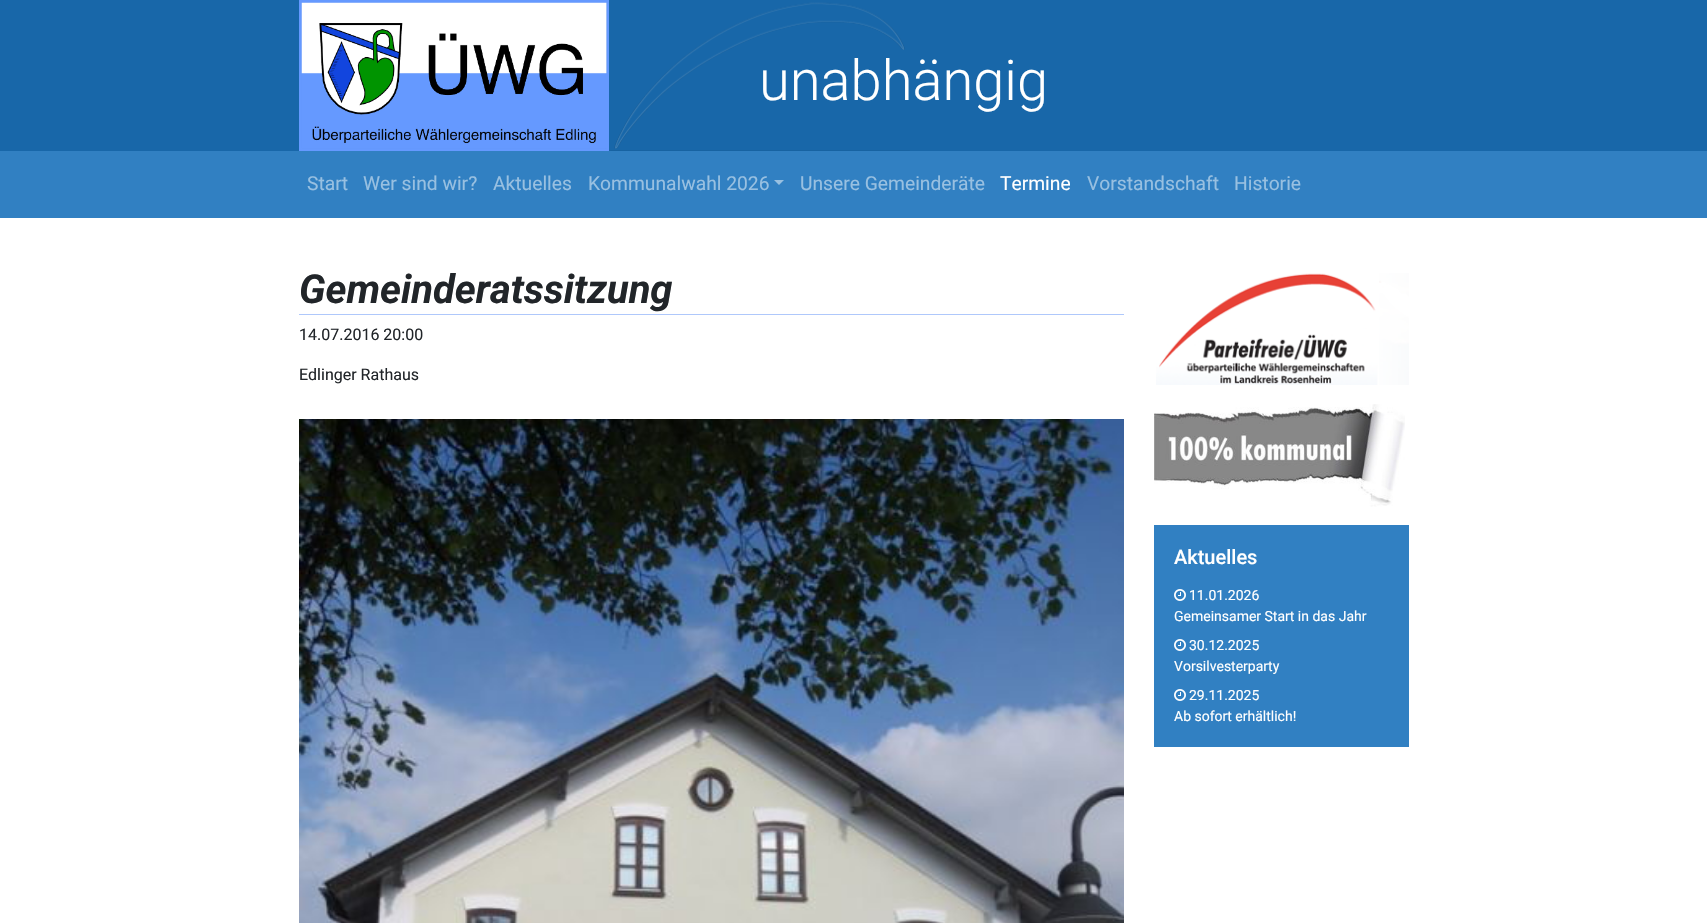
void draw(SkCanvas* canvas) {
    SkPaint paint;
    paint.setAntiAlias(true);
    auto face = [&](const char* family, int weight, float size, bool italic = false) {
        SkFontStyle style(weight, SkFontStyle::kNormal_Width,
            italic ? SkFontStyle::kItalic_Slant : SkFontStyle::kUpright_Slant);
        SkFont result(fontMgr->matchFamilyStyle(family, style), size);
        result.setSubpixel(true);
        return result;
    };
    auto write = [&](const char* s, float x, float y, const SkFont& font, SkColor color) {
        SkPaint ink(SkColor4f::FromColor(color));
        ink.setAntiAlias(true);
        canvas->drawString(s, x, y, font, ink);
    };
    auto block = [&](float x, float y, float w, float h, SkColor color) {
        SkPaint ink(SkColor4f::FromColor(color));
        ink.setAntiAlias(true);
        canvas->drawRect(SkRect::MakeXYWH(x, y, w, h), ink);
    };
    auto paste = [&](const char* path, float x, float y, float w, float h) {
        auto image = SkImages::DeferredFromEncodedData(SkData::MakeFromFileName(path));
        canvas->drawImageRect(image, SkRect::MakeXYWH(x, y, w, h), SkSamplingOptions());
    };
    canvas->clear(SK_ColorWHITE);
    block(0, 0, 1707, 151, SkColorSetRGB(24, 103, 169));
    paste("pic1.png", 299, 0, 310, 151);
    paste("pic2.png", 609, 2, 301, 149);
    auto kFont1 = face("Roboto", 300, 56);
    write("unabhängig", 759, 100, kFont1, SK_ColorWHITE);
    block(0, 151, 1707, 67, SkColorSetRGB(49, 128, 194));
    auto kFont2 = face("Roboto", 400, 19.25f);
    write("Start", 307, 190, kFont2, SkColorSetRGB(152, 192, 225));
    write("Wer sind wir?", 363, 190, kFont2, SkColorSetRGB(152, 192, 225));
    write("Aktuelles", 493, 190, kFont2, SkColorSetRGB(152, 192, 225));
    write("Kommunalwahl 2026", 588, 190, kFont2, SkColorSetRGB(152, 192, 225));
    paint.setColor(SkColorSetRGB(152, 192, 225));
    canvas->drawPath(SkPathBuilder().moveTo(774, 180).lineTo(784, 180).lineTo(779, 185).close().detach(), paint);
    write("Unsere Gemeinderäte", 800, 190, kFont2, SkColorSetRGB(152, 192, 225));
    write("Termine", 1000, 190, kFont2, SK_ColorWHITE);
    write("Vorstandschaft", 1087, 190, kFont2, SkColorSetRGB(152, 192, 225));
    write("Historie", 1234, 190, kFont2, SkColorSetRGB(152, 192, 225));
    block(299, 314, 825, 1, SkColorSetRGB(175, 200, 251));
    auto kFont3 = face("Roboto", 700, 40, true);
    write("Gemeinderatssitzung", 299, 303, kFont3, SkColorSetRGB(33, 37, 41));
    auto kFont4 = face("Roboto", 400, 16);
    write("14.07.2016 20:00", 299, 340, kFont4, SkColorSetRGB(33, 37, 41));
    write("Edlinger Rathaus", 299, 380, kFont4, SkColorSetRGB(33, 37, 41));
    paste("pic3.png", 299, 419, 825, 504);
    paste("pic4.png", 1156, 273, 253, 112);
    paste("pic5.png", 1154, 404, 251, 103);
    block(1154, 525, 255, 222, SkColorSetRGB(49, 128, 194));
    auto kFont5 = face("Roboto", 500, 20);
    write("Aktuelles", 1174, 564, kFont5, SK_ColorWHITE);
    paste("pic6.png", 1174, 589, 12, 12);
    auto kFont6 = face("Roboto", 400, 14);
    write("11.01.2026", 1189, 600, kFont6, SK_ColorWHITE);
    write("Gemeinsamer Start in das Jahr", 1174, 621, kFont6, SK_ColorWHITE);
    paste("pic6.png", 1174, 639, 12, 12);
    write("30.12.2025", 1189, 650, kFont6, SK_ColorWHITE);
    write("Vorsilvesterparty", 1174, 671, kFont6, SK_ColorWHITE);
    paste("pic6.png", 1174, 689, 12, 12);
    write("29.11.2025", 1189, 700, kFont6, SK_ColorWHITE);
    write("Ab sofort erhältlich!", 1174, 721, kFont6, SK_ColorWHITE);
}
